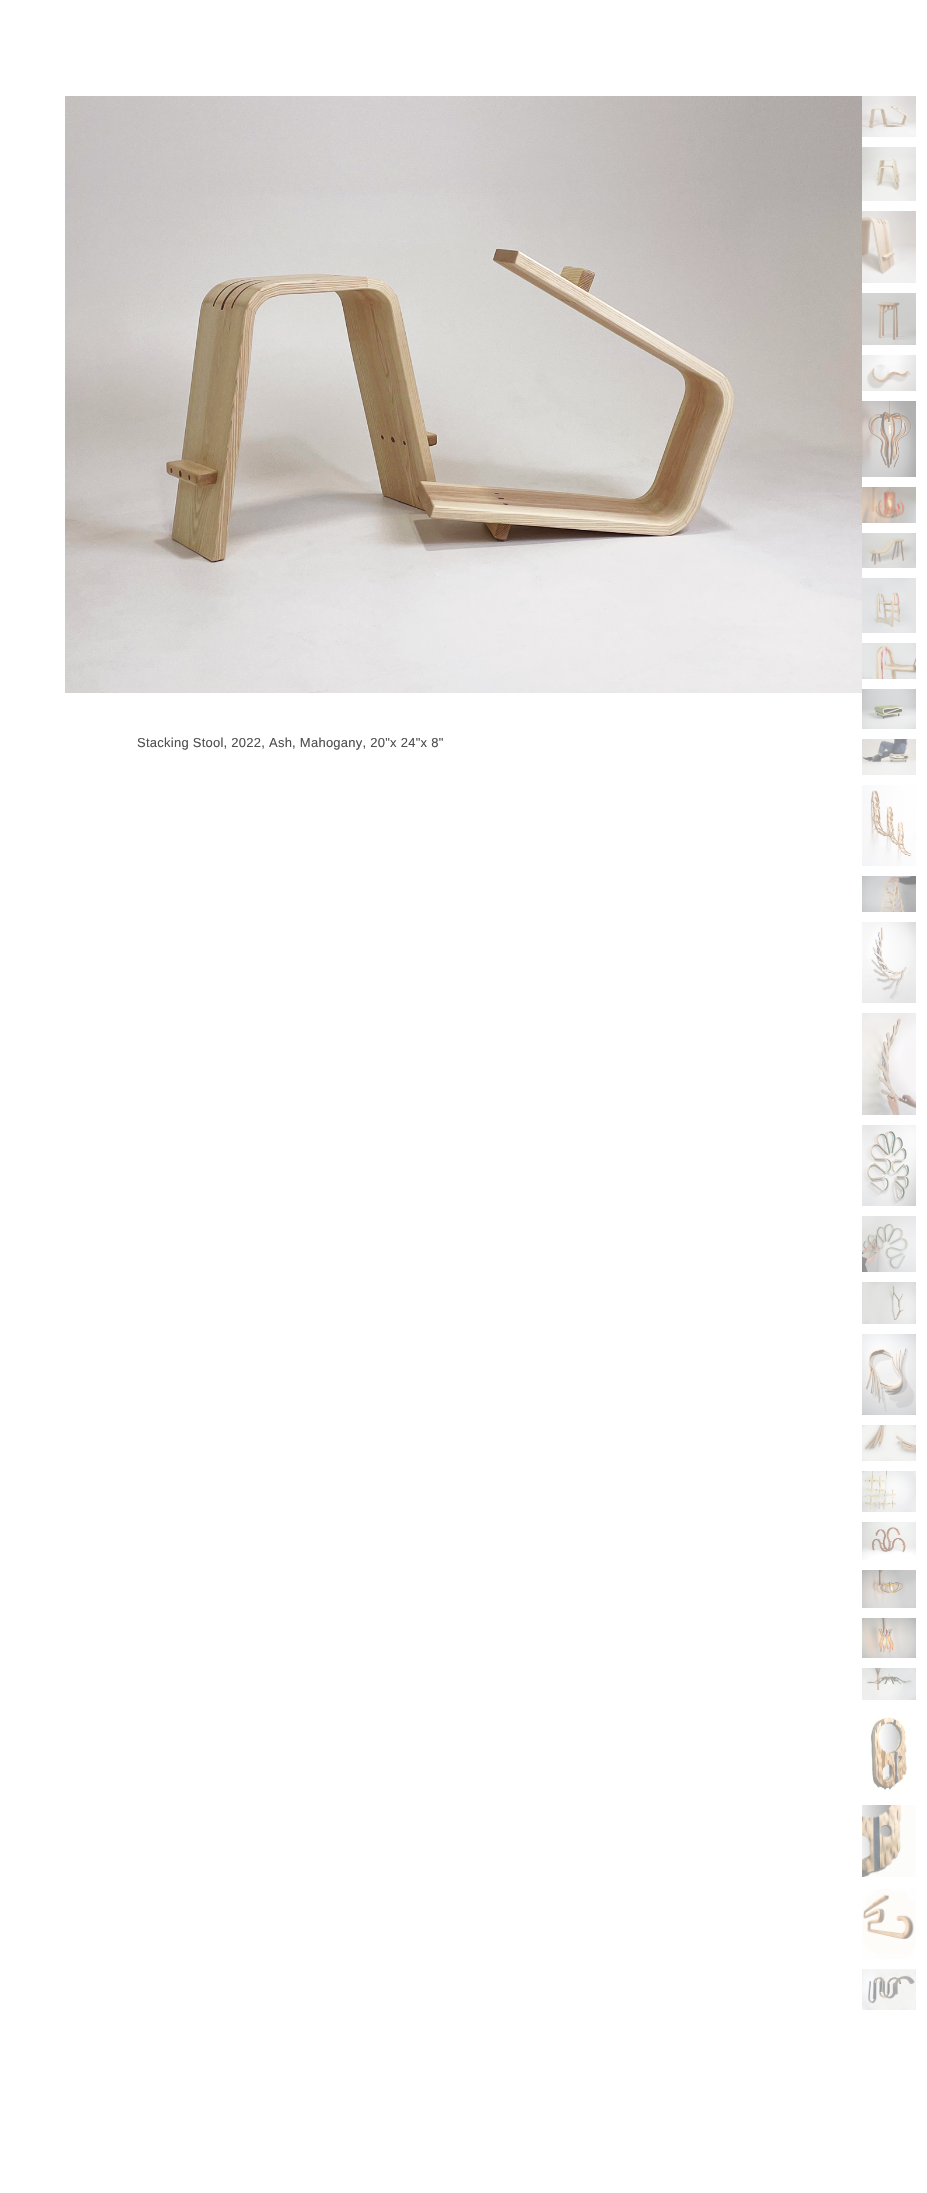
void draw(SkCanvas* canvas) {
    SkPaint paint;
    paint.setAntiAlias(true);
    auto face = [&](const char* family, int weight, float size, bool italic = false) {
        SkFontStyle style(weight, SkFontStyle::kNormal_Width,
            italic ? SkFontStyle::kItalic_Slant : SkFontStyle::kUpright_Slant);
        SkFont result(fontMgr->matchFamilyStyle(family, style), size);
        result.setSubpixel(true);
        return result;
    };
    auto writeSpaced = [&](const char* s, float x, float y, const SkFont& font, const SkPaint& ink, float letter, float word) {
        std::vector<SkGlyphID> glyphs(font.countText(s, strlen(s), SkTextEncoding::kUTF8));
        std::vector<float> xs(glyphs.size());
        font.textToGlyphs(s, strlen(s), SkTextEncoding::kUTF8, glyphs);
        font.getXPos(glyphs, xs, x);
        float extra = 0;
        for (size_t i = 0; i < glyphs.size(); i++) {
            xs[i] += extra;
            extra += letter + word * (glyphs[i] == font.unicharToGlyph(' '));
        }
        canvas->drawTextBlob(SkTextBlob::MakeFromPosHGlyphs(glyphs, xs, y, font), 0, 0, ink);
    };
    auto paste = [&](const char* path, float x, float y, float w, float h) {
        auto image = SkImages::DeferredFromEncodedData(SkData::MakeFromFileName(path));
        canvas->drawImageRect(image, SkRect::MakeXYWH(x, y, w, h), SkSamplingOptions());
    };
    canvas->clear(SK_ColorWHITE);
    paste("pic1.png", 65, 96, 797, 597);
    auto kFont1 = face("Liberation Sans", 400, 13);
    paint.setColor(SkColorSetRGB(79, 79, 79));
    writeSpaced("Stacking Stool, 2022, Ash, Mahogany, 20\"x 24\"x 8\"", 137, 747, kFont1, paint, 0.25f, 0);
    paste("pic2.png", 862, 96, 54, 41);
    paste("pic3.png", 862, 147, 54, 54);
    paste("pic4.png", 862, 211, 54, 72);
    paste("pic5.png", 862, 293, 54, 52);
    paste("pic6.png", 862, 355, 54, 36);
    paste("pic7.png", 862, 401, 54, 76);
    paste("pic8.png", 862, 487, 54, 36);
    paste("pic9.png", 862, 533, 54, 35);
    paste("pic10.png", 862, 578, 54, 55);
    paste("pic11.png", 862, 643, 54, 36);
    paste("pic12.png", 862, 689, 54, 40);
    paste("pic13.png", 862, 739, 54, 36);
    paste("pic14.png", 862, 785, 54, 81);
    paste("pic15.png", 862, 876, 54, 36);
    paste("pic16.png", 862, 922, 54, 81);
    paste("pic17.png", 862, 1013, 54, 102);
    paste("pic18.png", 862, 1125, 54, 81);
    paste("pic19.png", 862, 1216, 54, 56);
    paste("pic20.png", 862, 1282, 54, 42);
    paste("pic21.png", 862, 1334, 54, 81);
    paste("pic22.png", 862, 1425, 54, 36);
    paste("pic23.png", 862, 1471, 54, 41);
    paste("pic24.png", 862, 1522, 54, 38);
    paste("pic25.png", 862, 1570, 54, 38);
    paste("pic26.png", 862, 1618, 54, 40);
    paste("pic27.png", 862, 1668, 54, 32);
    paste("pic28.png", 870, 1717, 38, 73);
    paste("pic29.png", 862, 1805, 54, 72);
    paste("pic30.png", 862, 1889, 54, 70);
    paste("pic31.png", 862, 1969, 54, 41);
}
